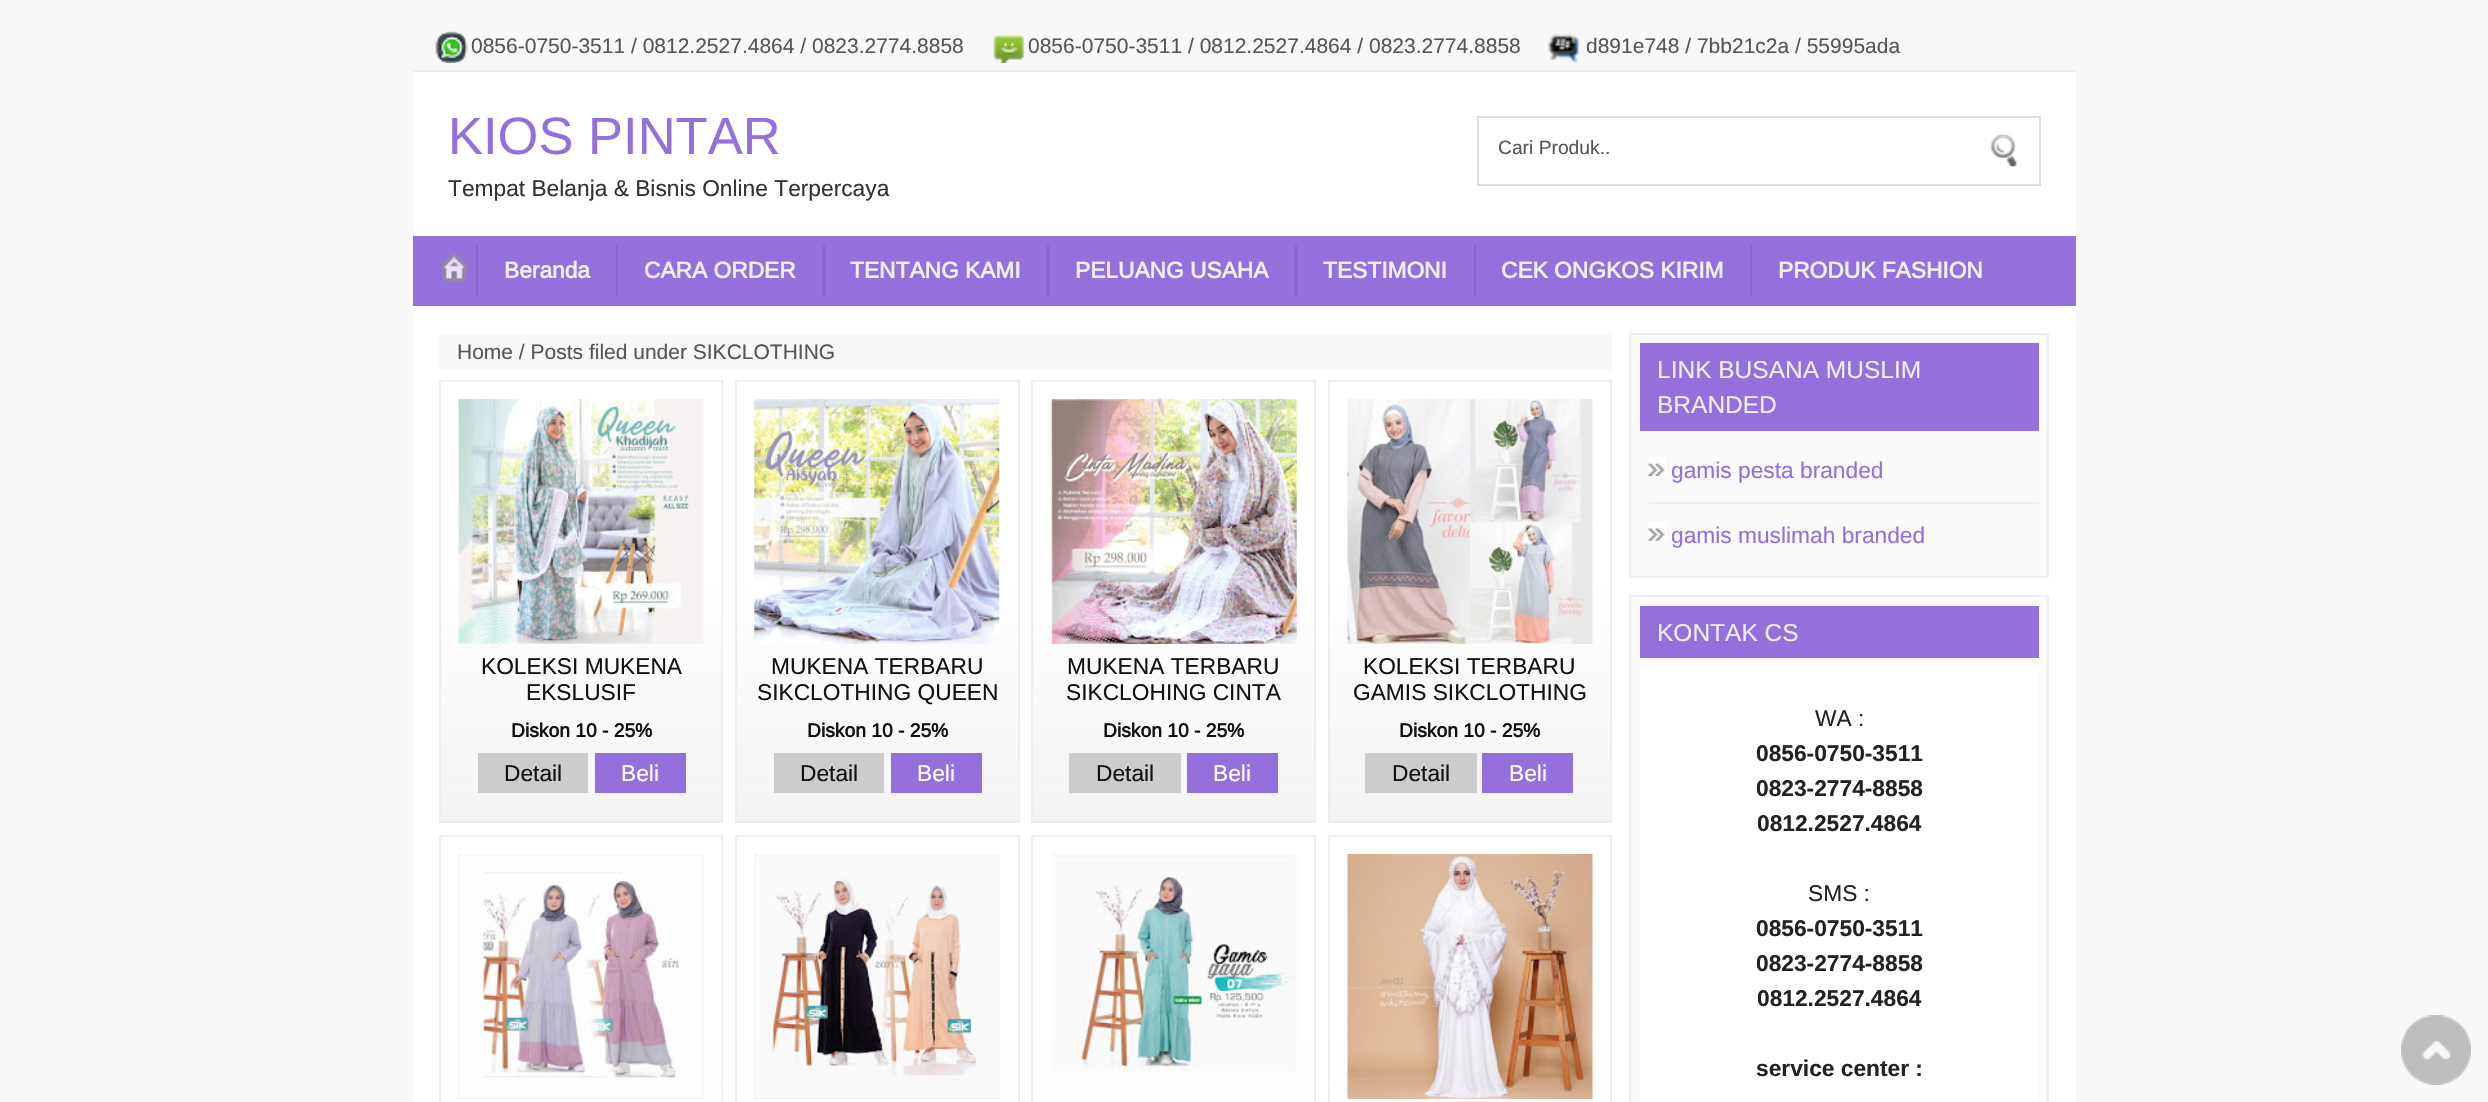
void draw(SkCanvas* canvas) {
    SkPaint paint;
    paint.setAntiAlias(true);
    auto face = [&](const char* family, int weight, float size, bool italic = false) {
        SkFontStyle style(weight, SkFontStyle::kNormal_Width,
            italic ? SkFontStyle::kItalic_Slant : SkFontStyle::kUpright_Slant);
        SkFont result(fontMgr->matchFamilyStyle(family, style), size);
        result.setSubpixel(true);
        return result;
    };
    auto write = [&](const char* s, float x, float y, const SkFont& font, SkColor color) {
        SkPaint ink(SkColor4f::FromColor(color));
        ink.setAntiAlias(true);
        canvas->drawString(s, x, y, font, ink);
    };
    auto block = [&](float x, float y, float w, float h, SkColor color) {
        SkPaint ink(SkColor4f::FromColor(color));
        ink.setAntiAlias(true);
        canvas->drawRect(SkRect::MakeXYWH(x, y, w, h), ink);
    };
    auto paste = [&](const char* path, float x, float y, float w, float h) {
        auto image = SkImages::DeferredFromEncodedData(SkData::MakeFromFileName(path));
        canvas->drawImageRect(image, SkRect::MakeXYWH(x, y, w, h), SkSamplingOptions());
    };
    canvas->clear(SkColorSetRGB(248, 248, 248));
    block(413, 72, 1663, 1030, SK_ColorWHITE);
    block(413, 70, 1663, 2, SkColorSetRGB(238, 238, 238));
    paste("pic1.png", 435, 31, 33, 32);
    auto kFont1 = face("Arimo", 400, 21);
    write("0856-0750-3511 / 0812.2527.4864 / 0823.2774.8858", 471, 53, kFont1, SkColorSetRGB(85, 85, 85));
    paste("pic2.png", 993, 34, 32, 29);
    write("0856-0750-3511 / 0812.2527.4864 / 0823.2774.8858", 1028, 53, kFont1, SkColorSetRGB(85, 85, 85));
    paste("pic3.png", 1548, 33, 31, 30);
    write("d891e748 / 7bb21c2a / 55995ada", 1586, 53, kFont1, SkColorSetRGB(85, 85, 85));
    auto kFont2 = face("Arimo", 400, 52.5f);
    write("KIOS PINTAR", 448, 154, kFont2, SkColorSetRGB(147, 112, 219));
    auto kFont3 = face("Arimo", 400, 22.75f);
    write("Tempat Belanja & Bisnis Online Terpercaya", 448, 196, kFont3, SkColorSetRGB(51, 51, 51));
    paint.setStyle(SkPaint::kStroke_Style);
    paint.setStrokeWidth(2);
    paint.setColor(SkColorSetRGB(221, 221, 221));
    canvas->drawRect(SkRect::MakeXYWH(1478, 117, 562, 68), paint);
    auto kFont4 = face("Liberation Sans", 400, 19.25f);
    write("Cari Produk..", 1498, 154, kFont4, SkColorSetRGB(85, 85, 85));
    paste("pic4.png", 1991, 134, 26, 33);
    block(413, 236, 1663, 70, SkColorSetRGB(147, 112, 219));
    block(476, 245, 2, 51, SkColorSetRGB(134, 102, 199));
    paste("pic5.png", 440, 253, 28, 30);
    block(616, 245, 2, 51, SkColorSetRGB(134, 102, 199));
    auto kFont5 = face("Arimo", 700, 22.75f);
    write("Beranda", 504, 278, kFont5, SkColorSetRGB(238, 238, 238));
    block(823, 245, 2, 51, SkColorSetRGB(134, 102, 199));
    write("CARA ORDER", 644, 278, kFont5, SkColorSetRGB(238, 238, 238));
    block(1047, 245, 2, 51, SkColorSetRGB(134, 102, 199));
    write("TENTANG KAMI", 850, 278, kFont5, SkColorSetRGB(238, 238, 238));
    block(1295, 245, 2, 51, SkColorSetRGB(134, 102, 199));
    write("PELUANG USAHA", 1075, 278, kFont5, SkColorSetRGB(238, 238, 238));
    block(1474, 245, 2, 51, SkColorSetRGB(134, 102, 199));
    write("TESTIMONI", 1323, 278, kFont5, SkColorSetRGB(238, 238, 238));
    block(1750, 245, 2, 51, SkColorSetRGB(134, 102, 199));
    write("CEK ONGKOS KIRIM", 1501, 278, kFont5, SkColorSetRGB(238, 238, 238));
    write("PRODUK FASHION", 1778, 278, kFont5, SkColorSetRGB(238, 238, 238));
    block(439, 333, 1173, 38, SkColorSetRGB(248, 248, 248));
    write("Home / Posts filed under SIKCLOTHING", 457, 359, kFont1, SkColorSetRGB(85, 85, 85));
    block(441, 588, 280, 233, SkColorSetRGB(238, 238, 238));
    paste("pic6.png", 441, 382, 280, 439);
    paint.setColor(SkColorSetRGB(238, 238, 238));
    canvas->drawRect(SkRect::MakeXYWH(440, 381, 282, 441), paint);
    paste("pic7.png", 458, 399, 246, 245);
    write("KOLEKSI MUKENA", 481, 674, kFont3, SkColorSetRGB(17, 17, 17));
    write("EKSLUSIF", 526, 700, kFont3, SkColorSetRGB(17, 17, 17));
    auto kFont6 = face("Arimo", 700, 19.25f);
    write("Diskon 10 - 25%", 511, 737, kFont6, SkColorSetRGB(17, 17, 17));
    block(478, 753, 110, 40, SkColorSetRGB(204, 204, 204));
    write("Detail", 504, 781, kFont3, SkColorSetRGB(17, 17, 17));
    block(595, 753, 91, 40, SkColorSetRGB(147, 112, 219));
    write("Beli", 621, 781, kFont3, SK_ColorWHITE);
    block(737, 588, 281, 233, SkColorSetRGB(238, 238, 238));
    paste("pic8.png", 737, 382, 281, 439);
    canvas->drawRect(SkRect::MakeXYWH(736, 381, 283, 441), paint);
    paste("pic9.png", 754, 399, 246, 245);
    write("MUKENA TERBARU", 771, 674, kFont3, SkColorSetRGB(17, 17, 17));
    write("SIKCLOTHING QUEEN", 757, 700, kFont3, SkColorSetRGB(17, 17, 17));
    write("Diskon 10 - 25%", 807, 737, kFont6, SkColorSetRGB(17, 17, 17));
    block(774, 753, 110, 40, SkColorSetRGB(204, 204, 204));
    write("Detail", 800, 781, kFont3, SkColorSetRGB(17, 17, 17));
    block(891, 753, 91, 40, SkColorSetRGB(147, 112, 219));
    write("Beli", 917, 781, kFont3, SK_ColorWHITE);
    block(1033, 588, 281, 233, SkColorSetRGB(238, 238, 238));
    paste("pic8.png", 1033, 382, 281, 439);
    canvas->drawRect(SkRect::MakeXYWH(1032, 381, 283, 441), paint);
    paste("pic10.png", 1051, 399, 246, 245);
    write("MUKENA TERBARU", 1067, 674, kFont3, SkColorSetRGB(17, 17, 17));
    write("SIKCLOHING CINTA", 1066, 700, kFont3, SkColorSetRGB(17, 17, 17));
    write("Diskon 10 - 25%", 1103, 737, kFont6, SkColorSetRGB(17, 17, 17));
    block(1069, 753, 112, 40, SkColorSetRGB(204, 204, 204));
    write("Detail", 1096, 781, kFont3, SkColorSetRGB(17, 17, 17));
    block(1187, 753, 91, 40, SkColorSetRGB(147, 112, 219));
    write("Beli", 1213, 781, kFont3, SK_ColorWHITE);
    block(1330, 588, 280, 233, SkColorSetRGB(238, 238, 238));
    paste("pic6.png", 1330, 382, 280, 439);
    canvas->drawRect(SkRect::MakeXYWH(1329, 381, 282, 441), paint);
    paste("pic11.png", 1347, 399, 246, 245);
    write("KOLEKSI TERBARU", 1363, 674, kFont3, SkColorSetRGB(17, 17, 17));
    write("GAMIS SIKCLOTHING", 1353, 700, kFont3, SkColorSetRGB(17, 17, 17));
    write("Diskon 10 - 25%", 1399, 737, kFont6, SkColorSetRGB(17, 17, 17));
    block(1365, 753, 112, 40, SkColorSetRGB(204, 204, 204));
    write("Detail", 1392, 781, kFont3, SkColorSetRGB(17, 17, 17));
    block(1482, 753, 91, 40, SkColorSetRGB(147, 112, 219));
    write("Beli", 1509, 781, kFont3, SK_ColorWHITE);
    paste("pic12.png", 441, 837, 280, 265);
    canvas->drawRect(SkRect::MakeXYWH(440, 836, 282, 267), paint);
    paste("pic13.png", 458, 854, 246, 245);
    paste("pic14.png", 737, 837, 281, 265);
    canvas->drawRect(SkRect::MakeXYWH(736, 836, 283, 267), paint);
    paste("pic15.png", 754, 854, 246, 245);
    paste("pic14.png", 1033, 837, 281, 265);
    canvas->drawRect(SkRect::MakeXYWH(1032, 836, 283, 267), paint);
    paste("pic16.png", 1052, 854, 245, 217);
    paste("pic12.png", 1330, 837, 280, 265);
    canvas->drawRect(SkRect::MakeXYWH(1329, 836, 282, 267), paint);
    paste("pic17.png", 1347, 854, 246, 245);
    paint.setStyle(SkPaint::kFill_Style);
    paint.setColor(SkColorSetRGB(250, 250, 250));
    canvas->drawRect(SkRect::MakeXYWH(1630, 334, 418, 243), paint);
    paint.setStyle(SkPaint::kStroke_Style);
    paint.setColor(SkColorSetRGB(238, 238, 238));
    canvas->drawRect(SkRect::MakeXYWH(1630, 334, 418, 243), paint);
    block(1640, 343, 399, 88, SkColorSetRGB(147, 112, 219));
    auto kFont7 = face("Arimo", 400, 24.5f);
    write("LINK BUSANA MUSLIM", 1657, 378, kFont7, SkColorSetRGB(238, 238, 238));
    write("BRANDED", 1657, 413, kFont7, SkColorSetRGB(238, 238, 238));
    paste("pic18.png", 1648, 457, 19, 19);
    block(1649, 502, 390, 2, SkColorSetRGB(238, 238, 238));
    write("gamis pesta branded", 1671, 478, kFont3, SkColorSetRGB(147, 112, 219));
    paste("pic19.png", 1648, 522, 19, 19);
    write("gamis muslimah branded", 1671, 543, kFont3, SkColorSetRGB(147, 112, 219));
    paint.setStyle(SkPaint::kFill_Style);
    paint.setColor(SkColorSetRGB(250, 250, 250));
    canvas->drawRect(SkRect::MakeXYWH(1630, 596, 418, 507), paint);
    paint.setStyle(SkPaint::kStroke_Style);
    paint.setColor(SkColorSetRGB(238, 238, 238));
    canvas->drawRect(SkRect::MakeXYWH(1630, 596, 418, 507), paint);
    block(1640, 606, 399, 52, SkColorSetRGB(147, 112, 219));
    write("KONTAK CS", 1657, 641, kFont7, SkColorSetRGB(238, 238, 238));
    block(1640, 667, 399, 435, SK_ColorWHITE);
    auto kFont8 = face("Liberation Sans", 400, 22.75f);
    write("WA :", 1815, 726, kFont8, SkColorSetRGB(34, 34, 34));
    auto kFont9 = face("Liberation Sans", 700, 22.75f);
    write("0856-0750-3511", 1756, 761, kFont9, SkColorSetRGB(34, 34, 34));
    write("0823-2774-8858", 1756, 796, kFont9, SkColorSetRGB(34, 34, 34));
    write("0812.2527.4864", 1757, 831, kFont9, SkColorSetRGB(34, 34, 34));
    write("SMS :", 1808, 901, kFont8, SkColorSetRGB(34, 34, 34));
    write("0856-0750-3511", 1756, 936, kFont9, SkColorSetRGB(34, 34, 34));
    write("0823-2774-8858", 1756, 971, kFont9, SkColorSetRGB(34, 34, 34));
    write("0812.2527.4864", 1757, 1006, kFont9, SkColorSetRGB(34, 34, 34));
    write("service center :", 1756, 1076, kFont9, SkColorSetRGB(34, 34, 34));
    paste("pic20.png", 2401, 1015, 70, 70);
}
